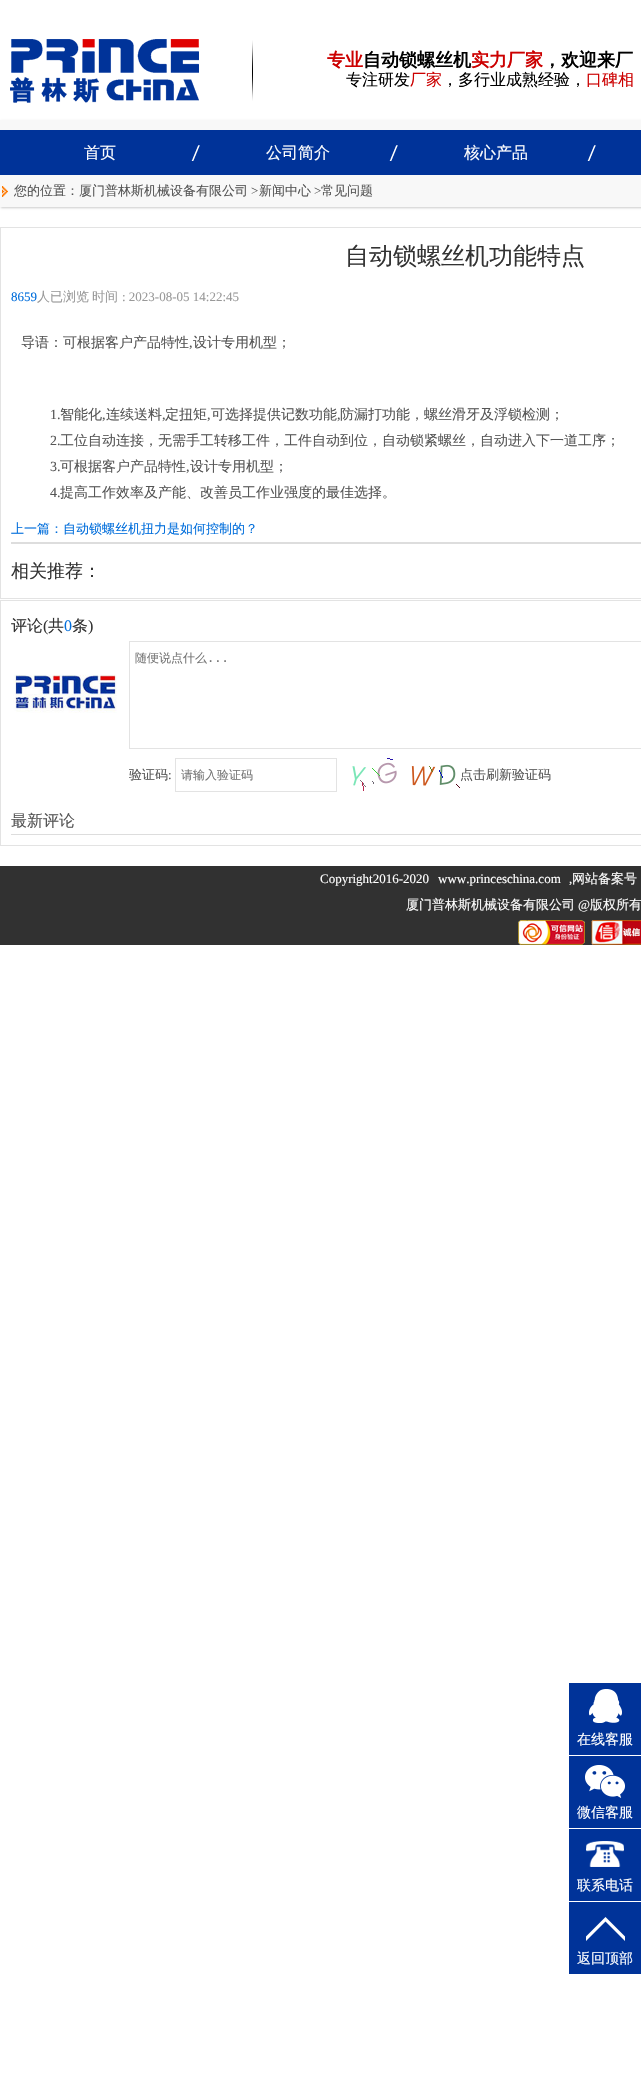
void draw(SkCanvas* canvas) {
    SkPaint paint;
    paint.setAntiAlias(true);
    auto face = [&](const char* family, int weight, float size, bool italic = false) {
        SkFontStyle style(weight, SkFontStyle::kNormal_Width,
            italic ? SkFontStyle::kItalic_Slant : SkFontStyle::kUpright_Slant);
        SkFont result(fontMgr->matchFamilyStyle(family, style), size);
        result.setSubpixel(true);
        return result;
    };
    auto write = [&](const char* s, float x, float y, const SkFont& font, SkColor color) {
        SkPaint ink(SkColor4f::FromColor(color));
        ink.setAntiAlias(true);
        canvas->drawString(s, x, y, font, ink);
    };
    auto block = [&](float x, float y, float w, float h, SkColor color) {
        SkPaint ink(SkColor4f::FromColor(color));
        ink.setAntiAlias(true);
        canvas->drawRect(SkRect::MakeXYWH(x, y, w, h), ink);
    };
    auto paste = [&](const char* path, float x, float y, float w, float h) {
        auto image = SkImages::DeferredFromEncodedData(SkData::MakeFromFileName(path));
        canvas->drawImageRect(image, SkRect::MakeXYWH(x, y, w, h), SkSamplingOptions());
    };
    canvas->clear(SK_ColorWHITE);
    paste("pic1.png", 10, 39, 243, 64);
    auto kFont1 = face("WenQuanYi Zen Hei", 700, 18);
    write("专业", 327, 66, kFont1, SkColorSetRGB(204, 0, 0));
    write("自动锁螺丝机", 363, 66, kFont1, SK_ColorBLACK);
    write("实力厂家", 471, 66, kFont1, SkColorSetRGB(204, 0, 0));
    write("，欢迎来厂", 543, 66, kFont1, SK_ColorBLACK);
    auto kFont2 = face("WenQuanYi Zen Hei", 500, 16);
    write("专注研发", 346, 85, kFont2, SK_ColorBLACK);
    write("厂家", 410, 85, kFont2, SkColorSetRGB(204, 0, 0));
    write("，多行业成熟经验，", 442, 85, kFont2, SK_ColorBLACK);
    write("口碑相", 586, 85, kFont2, SkColorSetRGB(204, 0, 0));
    paint.setColor(SkColorSetRGB(204, 204, 204));
    paint.setMaskFilter(SkMaskFilter::MakeBlur(kNormal_SkBlurStyle, 1));
    canvas->drawRect(SkRect::MakeXYWH(1, 121, 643, 87), paint);
    paint.setMaskFilter(nullptr);
    block(0, 120, 641, 87, SkColorSetRGB(248, 248, 248));
    block(0, 130, 641, 45, SkColorSetRGB(0, 51, 153));
    paste("pic2.png", 191, 145, 9, 16);
    write("首页", 84, 158, kFont2, SK_ColorWHITE);
    paste("pic2.png", 389, 145, 9, 16);
    write("公司简介", 266, 158, kFont2, SK_ColorWHITE);
    paste("pic2.png", 587, 145, 9, 16);
    write("核心产品", 464, 158, kFont2, SK_ColorWHITE);
    paste("pic3.png", 2, 186, 6, 11);
    auto kFont3 = face("WenQuanYi Zen Hei", 500, 13);
    write("您的位置：厦门普林斯机械设备有限公司", 14, 195, kFont3, SkColorSetRGB(85, 85, 85));
    auto kFont4 = face("Liberation Serif", 400, 13);
    write(">", 251, 195, kFont4, SkColorSetRGB(85, 85, 85));
    write("新闻中心", 259, 195, kFont3, SkColorSetRGB(85, 85, 85));
    write(">", 314, 195, kFont4, SkColorSetRGB(85, 85, 85));
    write("常见问题", 321, 195, kFont3, SkColorSetRGB(85, 85, 85));
    paint.setStyle(SkPaint::kStroke_Style);
    paint.setStrokeWidth(1);
    paint.setColor(SkColorSetRGB(227, 227, 227));
    canvas->drawRect(SkRect::MakeXYWH(0.5f, 227.5f, 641, 371), paint);
    auto kFont5 = face("WenQuanYi Zen Hei", 500, 24);
    write("自动锁螺丝机功能特点", 345, 264, kFont5, SkColorSetRGB(51, 51, 51));
    write("8659", 11, 301, kFont4, SkColorSetRGB(1, 110, 220));
    write("人已浏览", 37, 301, kFont3, SkColorSetRGB(153, 153, 153));
    write("时间", 92, 301, kFont3, SkColorSetRGB(153, 153, 153));
    write(": 2023-08-05 14:22:45", 122, 301, kFont4, SkColorSetRGB(153, 153, 153));
    auto kFont6 = face("WenQuanYi Zen Hei", 500, 14);
    write("导语：可根据客户产品特性", 21, 347, kFont6, SkColorSetRGB(85, 85, 85));
    auto kFont7 = face("Liberation Serif", 400, 14);
    write(",", 189, 347, kFont7, SkColorSetRGB(85, 85, 85));
    write("设计专用机型；", 193, 347, kFont6, SkColorSetRGB(85, 85, 85));
    write("1.", 50, 419, kFont7, SkColorSetRGB(85, 85, 85));
    write("智能化", 60, 419, kFont6, SkColorSetRGB(85, 85, 85));
    write(",", 102, 419, kFont7, SkColorSetRGB(85, 85, 85));
    write("连续送料", 106, 419, kFont6, SkColorSetRGB(85, 85, 85));
    write(",", 162, 419, kFont7, SkColorSetRGB(85, 85, 85));
    write("定扭矩", 165, 419, kFont6, SkColorSetRGB(85, 85, 85));
    write(",", 207, 419, kFont7, SkColorSetRGB(85, 85, 85));
    write("可选择提供记数功能", 211, 419, kFont6, SkColorSetRGB(85, 85, 85));
    write(",", 337, 419, kFont7, SkColorSetRGB(85, 85, 85));
    write("防漏打功能，螺丝滑牙及浮锁检测；", 340, 419, kFont6, SkColorSetRGB(85, 85, 85));
    write("2.", 50, 445, kFont7, SkColorSetRGB(85, 85, 85));
    write("工位自动连接，无需手工转移工件，工件自动到位，自动锁紧螺丝，自动进入下一道工序；", 60, 445, kFont6, SkColorSetRGB(85, 85, 85));
    write("3.", 50, 471, kFont7, SkColorSetRGB(85, 85, 85));
    write("可根据客户产品特性", 60, 471, kFont6, SkColorSetRGB(85, 85, 85));
    write(",", 186, 471, kFont7, SkColorSetRGB(85, 85, 85));
    write("设计专用机型；", 190, 471, kFont6, SkColorSetRGB(85, 85, 85));
    write("4.", 50, 497, kFont7, SkColorSetRGB(85, 85, 85));
    write("提高工作效率及产能、改善员工作业强度的最佳选择。", 60, 497, kFont6, SkColorSetRGB(85, 85, 85));
    block(11, 542, 630, 2, SkColorSetRGB(221, 221, 221));
    write("上一篇：自动锁螺丝机扭力是如何控制的？", 11, 533, kFont3, SkColorSetRGB(1, 110, 220));
    auto kFont8 = face("WenQuanYi Zen Hei", 500, 18);
    write("相关推荐：", 11, 577, kFont8, SkColorSetRGB(51, 51, 51));
    canvas->drawRect(SkRect::MakeXYWH(0.5f, 600.5f, 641, 245), paint);
    write("评论", 11, 631, kFont2, SkColorSetRGB(51, 51, 51));
    auto kFont9 = face("Liberation Serif", 400, 16);
    write("(", 43, 631, kFont9, SkColorSetRGB(51, 51, 51));
    write("共", 48, 631, kFont2, SkColorSetRGB(51, 51, 51));
    write("0", 64, 631, kFont9, SkColorSetRGB(1, 110, 220));
    write("条", 72, 631, kFont2, SkColorSetRGB(51, 51, 51));
    write(")", 88, 631, kFont9, SkColorSetRGB(51, 51, 51));
    paste("pic4.png", 13, 674, 104, 39);
    canvas->drawRect(SkRect::MakeXYWH(129.5f, 641.5f, 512, 107), paint);
    auto kFont10 = face("WenQuanYi Zen Hei", 500, 12);
    write("随便说点什么", 135, 662, kFont10, SkColorSetRGB(117, 117, 117));
    auto kFont11 = face("DejaVu Sans Mono", 400, 12);
    write("...", 207, 662, kFont11, SkColorSetRGB(117, 117, 117));
    write("验证码", 129, 779, kFont3, SkColorSetRGB(85, 85, 85));
    write(":", 168, 779, kFont4, SkColorSetRGB(85, 85, 85));
    canvas->drawRect(SkRect::MakeXYWH(175.5f, 758.5f, 161, 33), paint);
    write("请输入验证码", 181, 779, kFont10, SkColorSetRGB(117, 117, 117));
    paste("pic5.png", 352, 758, 108, 33);
    write("点击刷新验证码", 460, 779, kFont3, SkColorSetRGB(85, 85, 85));
    block(11, 834, 630, 1, SkColorSetRGB(221, 221, 221));
    write("最新评论", 11, 826, kFont2, SkColorSetRGB(85, 85, 85));
    block(0, 866, 641, 79, SkColorSetRGB(49, 49, 49));
    write("Copyright2016-2020", 320, 883, kFont4, SK_ColorWHITE);
    write("www.princeschina.com", 438, 883, kFont4, SK_ColorWHITE);
    write(",", 569, 883, kFont4, SK_ColorWHITE);
    write("网站备案号", 572, 883, kFont3, SK_ColorWHITE);
    write("厦门普林斯机械设备有限公司", 406, 909, kFont3, SK_ColorWHITE);
    write("@", 578, 909, kFont4, SK_ColorWHITE);
    write("版权所有", 590, 909, kFont3, SK_ColorWHITE);
    paste("pic6.png", 518, 920, 123, 25);
    block(569, 1683, 72, 72, SkColorSetRGB(0, 51, 153));
    paste("pic7.png", 589, 1689, 33, 34);
    write("在线客服", 577, 1744, kFont6, SK_ColorWHITE);
    block(569, 1756, 72, 72, SkColorSetRGB(0, 51, 153));
    paste("pic8.png", 585, 1765, 40, 33);
    write("微信客服", 577, 1817, kFont6, SK_ColorWHITE);
    block(569, 1829, 72, 72, SkColorSetRGB(0, 51, 153));
    paste("pic9.png", 586, 1841, 38, 26);
    write("联系电话", 577, 1890, kFont6, SK_ColorWHITE);
    block(569, 1902, 72, 72, SkColorSetRGB(0, 51, 153));
    paste("pic10.png", 586, 1917, 39, 24);
    write("返回顶部", 577, 1963, kFont6, SK_ColorWHITE);
}
